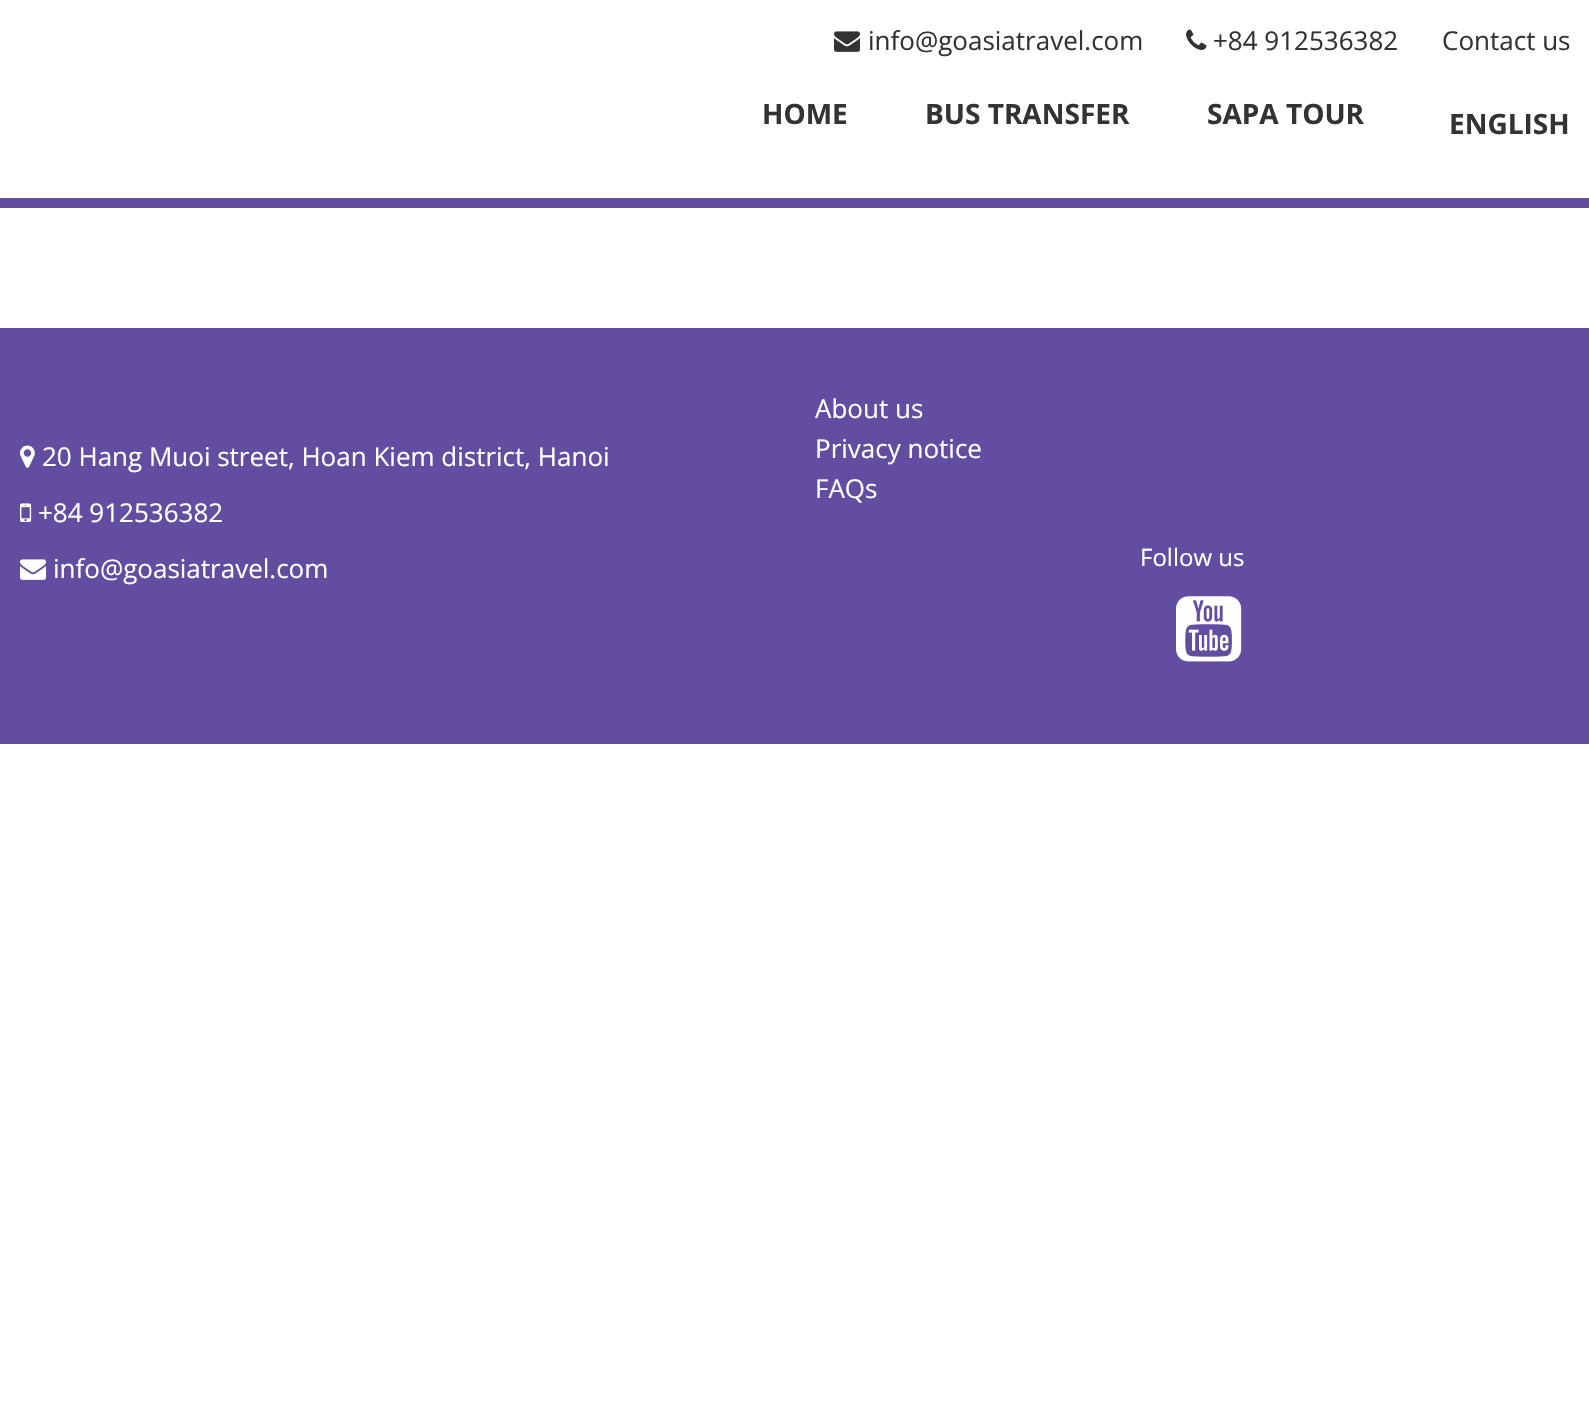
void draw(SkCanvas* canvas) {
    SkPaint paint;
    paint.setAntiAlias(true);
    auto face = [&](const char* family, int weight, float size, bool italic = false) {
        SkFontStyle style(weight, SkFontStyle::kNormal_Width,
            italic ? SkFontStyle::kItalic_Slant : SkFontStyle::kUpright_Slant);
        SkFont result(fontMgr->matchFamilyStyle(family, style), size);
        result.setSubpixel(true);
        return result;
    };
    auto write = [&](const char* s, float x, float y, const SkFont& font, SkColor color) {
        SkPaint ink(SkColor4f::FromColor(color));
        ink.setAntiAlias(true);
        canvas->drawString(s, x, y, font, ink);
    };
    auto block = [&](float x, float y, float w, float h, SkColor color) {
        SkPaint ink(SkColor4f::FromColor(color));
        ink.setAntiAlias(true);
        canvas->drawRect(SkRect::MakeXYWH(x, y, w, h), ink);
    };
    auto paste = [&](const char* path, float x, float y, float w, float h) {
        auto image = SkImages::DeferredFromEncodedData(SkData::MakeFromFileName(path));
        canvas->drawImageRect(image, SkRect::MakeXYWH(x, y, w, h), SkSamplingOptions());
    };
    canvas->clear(SK_ColorWHITE);
    block(0, 198, 1589, 10, SkColorSetRGB(98, 77, 158));
    paste("pic1.png", 834, 31, 26, 21);
    auto kFont1 = face("Open Sans", 400, 26);
    write("info@goasiatravel.com", 868, 50, kFont1, SkColorSetRGB(51, 51, 51));
    paste("pic2.png", 1186, 29, 21, 21);
    write("+84 912536382", 1213, 50, kFont1, SkColorSetRGB(51, 51, 51));
    write("Contact us", 1442, 50, kFont1, SkColorSetRGB(51, 51, 51));
    auto kFont2 = face("Open Sans", 700, 28);
    write("HOME", 762, 124, kFont2, SkColorSetRGB(51, 51, 51));
    write("BUS TRANSFER", 925, 124, kFont2, SkColorSetRGB(51, 51, 51));
    write("SAPA TOUR", 1207, 124, kFont2, SkColorSetRGB(51, 51, 51));
    write("ENGLISH", 1449, 134, kFont2, SkColorSetRGB(51, 51, 51));
    block(0, 328, 1589, 416, SkColorSetRGB(98, 77, 160));
    paste("pic3.png", 20, 445, 15, 23);
    write("20 Hang Muoi street, Hoan Kiem district, Hanoi", 42, 466, kFont1, SK_ColorWHITE);
    paste("pic4.png", 20, 503, 12, 19);
    write("+84 912536382", 38, 522, kFont1, SK_ColorWHITE);
    paste("pic5.png", 20, 559, 26, 21);
    write("info@goasiatravel.com", 53, 578, kFont1, SK_ColorWHITE);
    write("About us", 815, 418, kFont1, SK_ColorWHITE);
    write("Privacy notice", 815, 458, kFont1, SK_ColorWHITE);
    write("FAQs", 815, 498, kFont1, SK_ColorWHITE);
    auto kFont3 = face("Open Sans", 400, 24);
    write("Follow us", 1140, 566, kFont3, SK_ColorWHITE);
    paste("pic6.png", 1176, 596, 66, 66);
}
